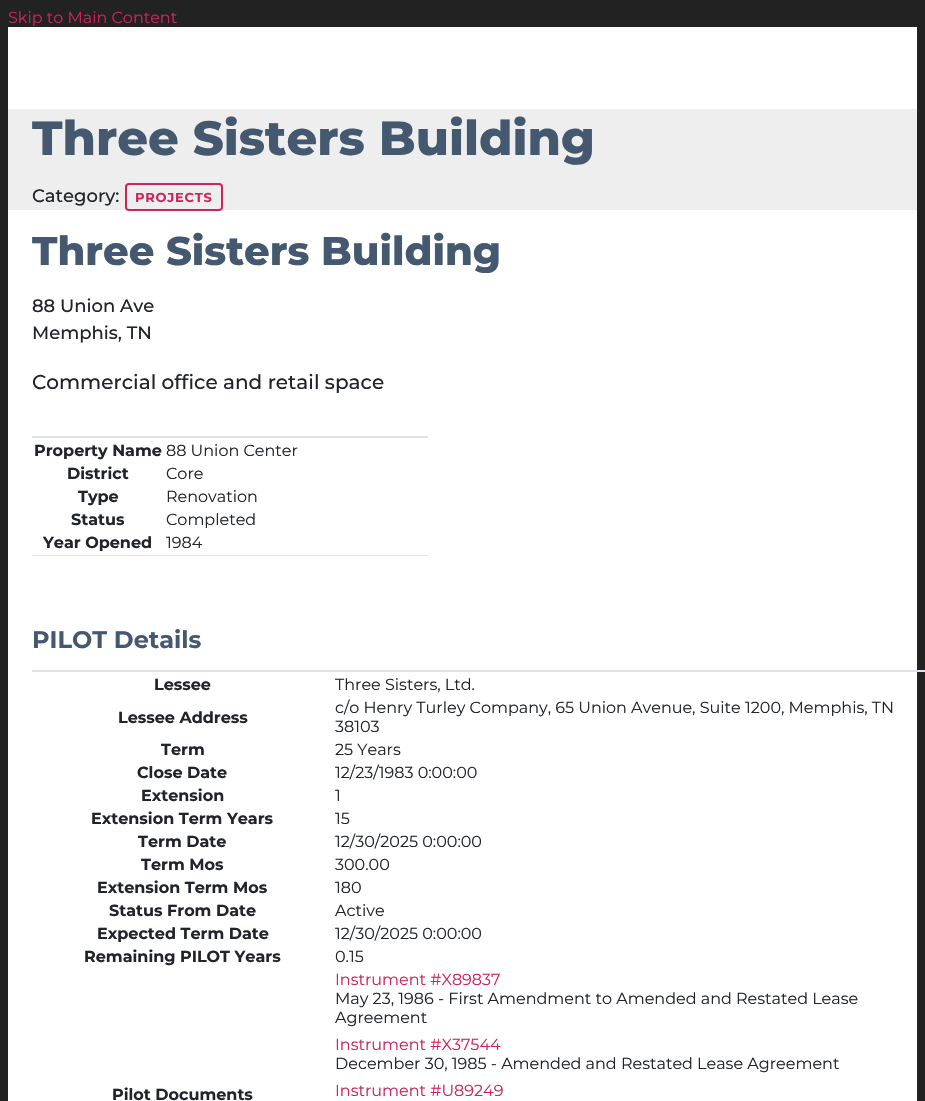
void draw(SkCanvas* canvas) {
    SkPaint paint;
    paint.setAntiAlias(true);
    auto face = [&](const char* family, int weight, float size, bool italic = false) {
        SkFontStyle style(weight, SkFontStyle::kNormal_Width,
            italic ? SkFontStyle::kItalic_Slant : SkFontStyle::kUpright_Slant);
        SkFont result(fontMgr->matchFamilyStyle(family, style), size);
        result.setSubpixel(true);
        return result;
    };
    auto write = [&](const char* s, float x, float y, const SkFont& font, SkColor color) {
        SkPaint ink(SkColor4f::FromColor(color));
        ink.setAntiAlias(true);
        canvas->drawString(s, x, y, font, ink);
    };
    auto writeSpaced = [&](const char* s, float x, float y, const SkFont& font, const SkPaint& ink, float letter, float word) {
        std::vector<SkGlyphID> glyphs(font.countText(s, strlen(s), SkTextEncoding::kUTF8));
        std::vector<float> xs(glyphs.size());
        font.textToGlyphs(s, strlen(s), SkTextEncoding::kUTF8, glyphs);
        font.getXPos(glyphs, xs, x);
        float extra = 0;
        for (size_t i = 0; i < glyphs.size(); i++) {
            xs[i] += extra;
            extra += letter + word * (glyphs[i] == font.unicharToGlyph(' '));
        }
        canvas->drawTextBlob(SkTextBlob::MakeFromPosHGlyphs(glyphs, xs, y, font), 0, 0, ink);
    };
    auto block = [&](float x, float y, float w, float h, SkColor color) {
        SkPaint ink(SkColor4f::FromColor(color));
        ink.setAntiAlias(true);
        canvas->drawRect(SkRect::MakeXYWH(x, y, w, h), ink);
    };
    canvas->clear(SkColorSetRGB(34, 34, 34));
    auto kFont1 = face("Montserrat", 400, 16);
    write("Skip to Main Content", 8, 23, kFont1, SkColorSetRGB(203, 37, 90));
    block(8, 27, 909, 1074, SK_ColorWHITE);
    block(8, 109, 909, 101, SkColorSetRGB(238, 238, 238));
    auto kFont2 = face("Montserrat", 800, 48);
    write("Three Sisters Building", 32, 155, kFont2, SkColorSetRGB(68, 89, 112));
    auto kFont3 = face("Montserrat", 500, 18);
    write("Category:", 32, 202, kFont3, SkColorSetRGB(33, 37, 41));
    paint.setStyle(SkPaint::kStroke_Style);
    paint.setStrokeWidth(2);
    paint.setColor(SkColorSetRGB(203, 37, 90));
    canvas->drawRoundRect(SkRect::MakeXYWH(126, 184, 96, 26), 3, 3, paint);
    auto kFont4 = face("Montserrat", 700, 13);
    paint.setStyle(SkPaint::kFill_Style);
    writeSpaced("PROJECTS", 135, 202, kFont4, paint, 0.75f, 0);
    auto kFont5 = face("Montserrat", 800, 40);
    write("Three Sisters Building", 32, 265, kFont5, SkColorSetRGB(68, 89, 112));
    write("88 Union Ave", 32, 312, kFont3, SkColorSetRGB(33, 37, 41));
    write("Memphis, TN", 32, 339, kFont3, SkColorSetRGB(33, 37, 41));
    auto kFont6 = face("Montserrat", 500, 20);
    write("Commercial office and retail space", 32, 389, kFont6, SkColorSetRGB(33, 37, 41));
    block(32, 436, 396, 2, SkColorSetRGB(222, 226, 230));
    block(32, 555, 396, 1, SkColorSetRGB(222, 226, 230));
    auto kFont7 = face("Montserrat", 700, 16);
    write("Property Name", 34, 456, kFont7, SkColorSetRGB(33, 37, 41));
    write("88 Union Center", 166, 456, kFont1, SkColorSetRGB(33, 37, 41));
    write("District", 67, 479, kFont7, SkColorSetRGB(33, 37, 41));
    write("Core", 166, 479, kFont1, SkColorSetRGB(33, 37, 41));
    write("Type", 78, 502, kFont7, SkColorSetRGB(33, 37, 41));
    write("Renovation", 166, 502, kFont1, SkColorSetRGB(33, 37, 41));
    write("Status", 71, 525, kFont7, SkColorSetRGB(33, 37, 41));
    write("Completed", 166, 525, kFont1, SkColorSetRGB(33, 37, 41));
    write("Year Opened", 43, 548, kFont7, SkColorSetRGB(33, 37, 41));
    write("1984", 166, 548, kFont1, SkColorSetRGB(33, 37, 41));
    auto kFont8 = face("Montserrat", 700, 24);
    write("PILOT Details", 32, 648, kFont8, SkColorSetRGB(68, 89, 112));
    block(32, 670, 893, 2, SkColorSetRGB(222, 226, 230));
    write("Lessee", 154, 690, kFont7, SkColorSetRGB(33, 37, 41));
    write("Three Sisters, Ltd.", 335, 690, kFont1, SkColorSetRGB(33, 37, 41));
    write("Lessee Address", 118, 723, kFont7, SkColorSetRGB(33, 37, 41));
    write("c/o Henry Turley Company, 65 Union Avenue, Suite 1200, Memphis, TN", 335, 713, kFont1, SkColorSetRGB(33, 37, 41));
    write("38103", 335, 732, kFont1, SkColorSetRGB(33, 37, 41));
    write("Term", 161, 755, kFont7, SkColorSetRGB(33, 37, 41));
    write("25 Years", 335, 755, kFont1, SkColorSetRGB(33, 37, 41));
    write("Close Date", 137, 778, kFont7, SkColorSetRGB(33, 37, 41));
    write("12/23/1983 0:00:00", 335, 778, kFont1, SkColorSetRGB(33, 37, 41));
    write("Extension", 141, 801, kFont7, SkColorSetRGB(33, 37, 41));
    write("1", 335, 801, kFont1, SkColorSetRGB(33, 37, 41));
    write("Extension Term Years", 91, 824, kFont7, SkColorSetRGB(33, 37, 41));
    write("15", 335, 824, kFont1, SkColorSetRGB(33, 37, 41));
    write("Term Date", 138, 847, kFont7, SkColorSetRGB(33, 37, 41));
    write("12/30/2025 0:00:00", 335, 847, kFont1, SkColorSetRGB(33, 37, 41));
    write("Term Mos", 141, 870, kFont7, SkColorSetRGB(33, 37, 41));
    write("300.00", 335, 870, kFont1, SkColorSetRGB(33, 37, 41));
    write("Extension Term Mos", 97, 893, kFont7, SkColorSetRGB(33, 37, 41));
    write("180", 335, 893, kFont1, SkColorSetRGB(33, 37, 41));
    write("Status From Date", 109, 916, kFont7, SkColorSetRGB(33, 37, 41));
    write("Active", 335, 916, kFont1, SkColorSetRGB(33, 37, 41));
    write("Expected Term Date", 97, 939, kFont7, SkColorSetRGB(33, 37, 41));
    write("12/30/2025 0:00:00", 335, 939, kFont1, SkColorSetRGB(33, 37, 41));
    write("Remaining PILOT Years", 84, 962, kFont7, SkColorSetRGB(33, 37, 41));
    write("0.15", 335, 962, kFont1, SkColorSetRGB(33, 37, 41));
    write("Pilot Documents", 112, 1100, kFont7, SkColorSetRGB(33, 37, 41));
    write("Instrument #X89837", 335, 985, kFont1, SkColorSetRGB(203, 37, 90));
    write("May 23, 1986 - First Amendment to Amended and Restated Lease", 335, 1004, kFont1, SkColorSetRGB(33, 37, 41));
    write("Agreement", 335, 1023, kFont1, SkColorSetRGB(33, 37, 41));
    write("Instrument #X37544", 335, 1050, kFont1, SkColorSetRGB(203, 37, 90));
    write("December 30, 1985 - Amended and Restated Lease Agreement", 335, 1069, kFont1, SkColorSetRGB(33, 37, 41));
    write("Instrument #U89249", 335, 1096, kFont1, SkColorSetRGB(203, 37, 90));
}
